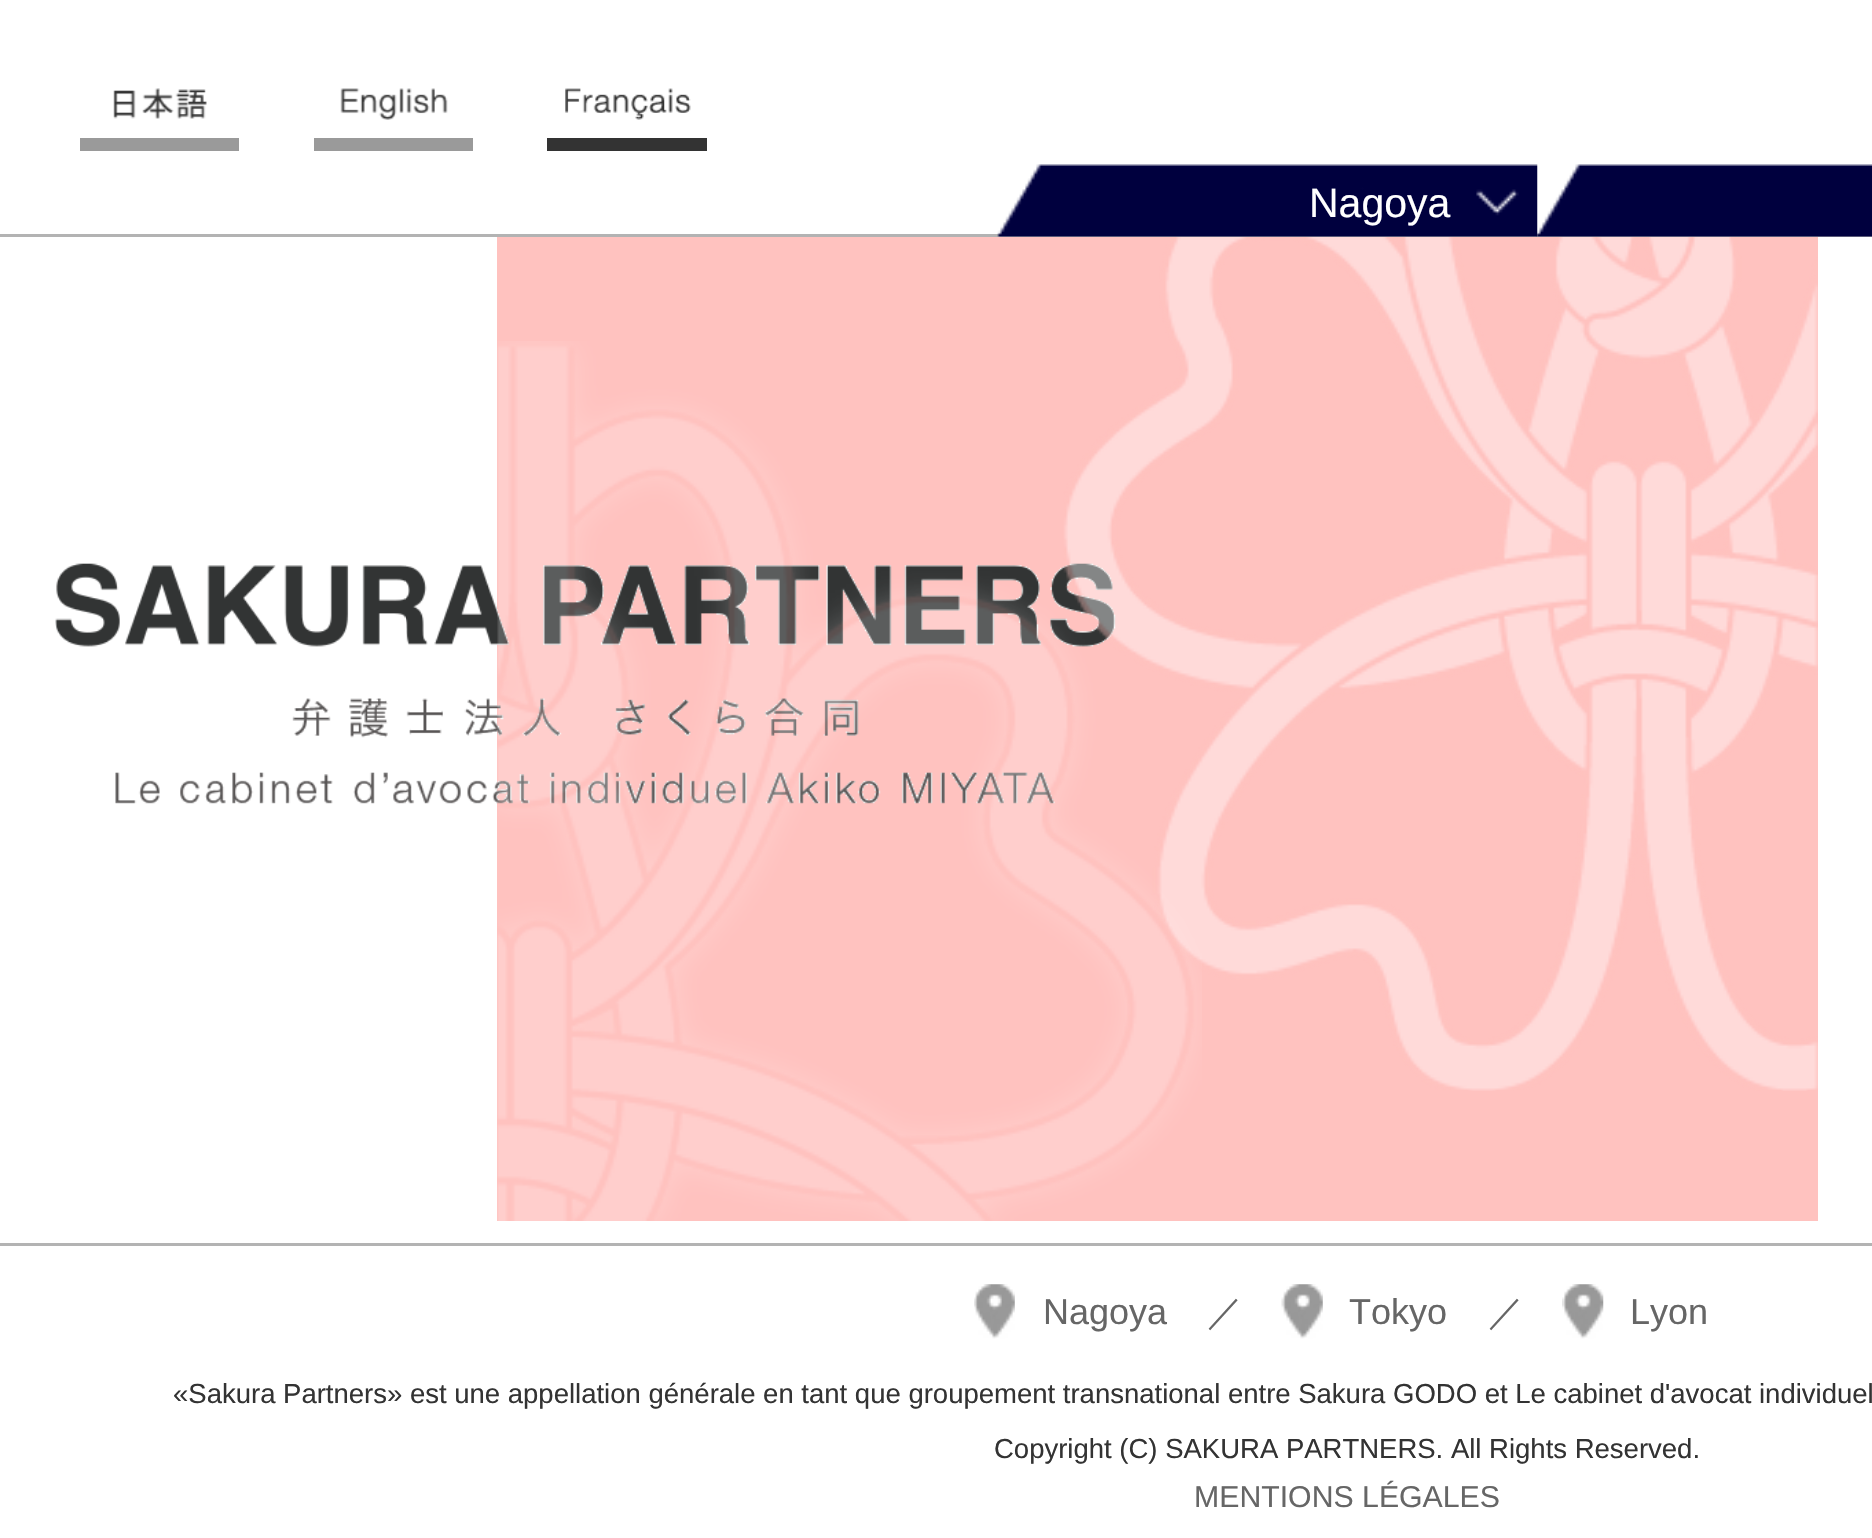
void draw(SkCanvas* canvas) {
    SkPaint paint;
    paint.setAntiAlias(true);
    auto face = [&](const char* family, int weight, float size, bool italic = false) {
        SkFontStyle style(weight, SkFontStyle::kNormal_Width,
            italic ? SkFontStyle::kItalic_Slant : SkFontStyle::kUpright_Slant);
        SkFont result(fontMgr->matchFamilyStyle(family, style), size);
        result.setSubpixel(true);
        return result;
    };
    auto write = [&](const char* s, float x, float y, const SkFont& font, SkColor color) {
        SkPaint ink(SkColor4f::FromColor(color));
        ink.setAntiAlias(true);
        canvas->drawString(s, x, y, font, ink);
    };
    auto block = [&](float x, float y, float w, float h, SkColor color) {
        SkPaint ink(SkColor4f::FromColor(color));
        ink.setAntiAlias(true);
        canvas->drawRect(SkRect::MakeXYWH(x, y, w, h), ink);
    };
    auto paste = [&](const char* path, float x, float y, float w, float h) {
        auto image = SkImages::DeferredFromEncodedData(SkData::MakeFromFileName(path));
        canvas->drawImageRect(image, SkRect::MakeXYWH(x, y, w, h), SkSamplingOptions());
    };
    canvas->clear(SK_ColorWHITE);
    block(0, 234, 1872, 3, SkColorSetRGB(179, 179, 179));
    block(80, 138, 159, 13, SkColorSetRGB(154, 154, 154));
    paste("pic1.png", 113, 88, 94, 31);
    block(314, 138, 159, 13, SkColorSetRGB(154, 154, 154));
    paste("pic2.png", 340, 88, 108, 32);
    block(547, 138, 160, 13, SkColorSetRGB(51, 51, 51));
    paste("pic3.png", 565, 88, 126, 32);
    paste("pic4.png", 997, 164, 541, 73);
    auto kFont1 = face("Liberation Sans", 400, 41);
    write("Nagoya", 1309, 217, kFont1, SK_ColorWHITE);
    paste("pic5.png", 1536, 164, 336, 73);
    block(497, 237, 1321, 984, SkColorSetRGB(255, 194, 191));
    paste("pic8.png", 55, 563, 1061, 241);
    paste("pic7.png", 1063, 237, 755, 854);
    paste("pic6.png", 497, 341, 705, 880);
    block(0, 1243, 1872, 3, SkColorSetRGB(179, 179, 179));
    paste("pic9.png", 974, 1284, 41, 55);
    auto kFont2 = face("Liberation Sans", 400, 36);
    write("Nagoya", 1043, 1324, kFont2, SkColorSetRGB(102, 102, 102));
    auto kFont3 = face("WenQuanYi Zen Hei", 500, 36);
    write("／", 1207, 1324, kFont3, SkColorSetRGB(102, 102, 102));
    paste("pic10.png", 1281, 1284, 42, 55);
    write("Tokyo", 1349, 1324, kFont2, SkColorSetRGB(102, 102, 102));
    write("／", 1488, 1324, kFont3, SkColorSetRGB(102, 102, 102));
    paste("pic11.png", 1562, 1284, 42, 55);
    write("Lyon", 1630, 1324, kFont2, SkColorSetRGB(102, 102, 102));
    auto kFont4 = face("Liberation Sans", 400, 27.5f);
    write("«Sakura Partners» est une appellation générale en tant que groupement transnational entre Sakura GODO et Le cabinet d'avocat individuel", 173, 1403, kFont4, SkColorSetRGB(51, 51, 51));
    write("Copyright (C) SAKURA PARTNERS. All Rights Reserved.", 994, 1458, kFont4, SkColorSetRGB(51, 51, 51));
    auto kFont5 = face("Liberation Sans", 400, 30.25f);
    write("MENTIONS LÉGALES", 1194, 1507, kFont5, SkColorSetRGB(102, 102, 102));
}
